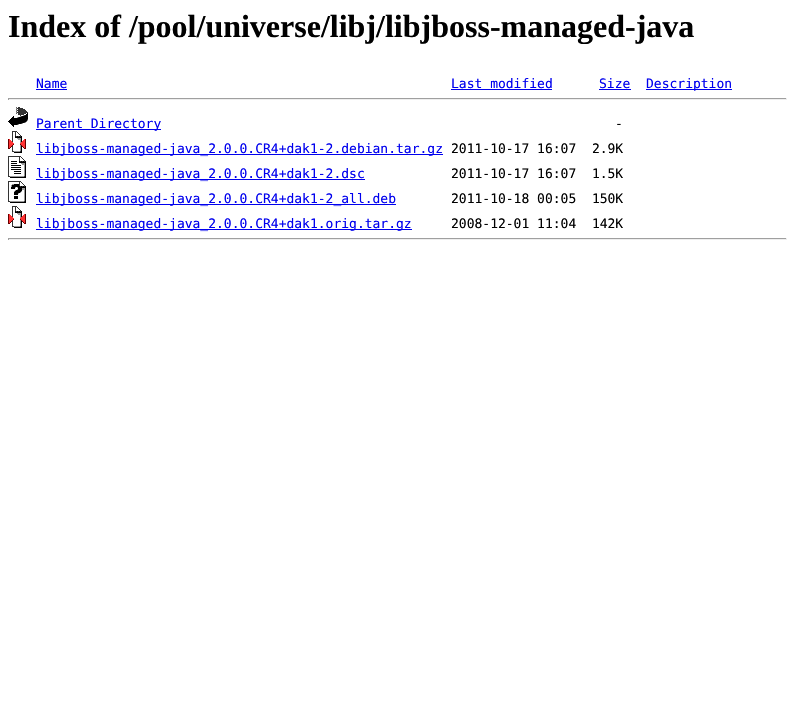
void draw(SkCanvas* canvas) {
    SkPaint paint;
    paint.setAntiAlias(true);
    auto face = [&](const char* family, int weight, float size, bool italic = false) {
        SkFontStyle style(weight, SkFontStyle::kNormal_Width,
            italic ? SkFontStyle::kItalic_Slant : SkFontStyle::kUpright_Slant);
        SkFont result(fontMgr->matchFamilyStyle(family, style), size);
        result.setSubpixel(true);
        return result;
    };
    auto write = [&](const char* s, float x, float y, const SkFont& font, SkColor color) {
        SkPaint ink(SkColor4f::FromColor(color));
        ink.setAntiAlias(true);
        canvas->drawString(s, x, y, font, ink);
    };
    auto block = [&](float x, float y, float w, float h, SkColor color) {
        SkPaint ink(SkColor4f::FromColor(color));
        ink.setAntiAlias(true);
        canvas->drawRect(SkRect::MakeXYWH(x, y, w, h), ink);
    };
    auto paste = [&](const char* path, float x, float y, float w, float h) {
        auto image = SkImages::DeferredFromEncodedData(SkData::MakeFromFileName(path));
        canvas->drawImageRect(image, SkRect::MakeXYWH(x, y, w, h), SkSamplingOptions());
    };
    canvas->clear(SK_ColorWHITE);
    auto kFont1 = face("Liberation Serif", 700, 32);
    write("Index of /pool/universe/libj/libjboss-managed-java", 8, 37, kFont1, SK_ColorBLACK);
    auto kFont2 = face("DejaVu Sans Mono", 400, 13);
    write("Name", 36, 88, kFont2, SkColorSetRGB(0, 0, 238));
    block(36, 89, 31, 1, SkColorSetRGB(0, 0, 238));
    write("Last modified", 451, 88, kFont2, SkColorSetRGB(0, 0, 238));
    block(451, 89, 101, 1, SkColorSetRGB(0, 0, 238));
    write("Size", 599, 88, kFont2, SkColorSetRGB(0, 0, 238));
    block(599, 89, 32, 1, SkColorSetRGB(0, 0, 238));
    block(646, 89, 86, 1, SkColorSetRGB(0, 0, 238));
    write("Description", 646, 88, kFont2, SkColorSetRGB(0, 0, 238));
    block(8, 98, 779, 1, SkColorSetRGB(159, 159, 159));
    block(786, 98, 1, 2, SkColorSetRGB(238, 238, 238));
    block(8, 99, 779, 1, SkColorSetRGB(238, 238, 238));
    block(8, 98, 1, 2, SkColorSetRGB(159, 159, 159));
    paste("pic1.png", 8, 107, 20, 20);
    block(36, 129, 125, 1, SkColorSetRGB(0, 0, 238));
    write("Parent Directory", 36, 128, kFont2, SkColorSetRGB(0, 0, 238));
    write("-", 615, 128, kFont2, SK_ColorBLACK);
    paste("pic2.png", 8, 131, 18, 22);
    block(36, 154, 407, 1, SkColorSetRGB(0, 0, 238));
    write("libjboss-managed-java_2.0.0.CR4+dak1-2.debian.tar.gz", 36, 153, kFont2, SkColorSetRGB(0, 0, 238));
    write("2011-10-17 16:07  2.9K", 451, 153, kFont2, SK_ColorBLACK);
    paste("pic3.png", 8, 156, 18, 22);
    block(36, 179, 329, 1, SkColorSetRGB(0, 0, 238));
    write("libjboss-managed-java_2.0.0.CR4+dak1-2.dsc", 36, 178, kFont2, SkColorSetRGB(0, 0, 238));
    write("2011-10-17 16:07  1.5K", 451, 178, kFont2, SK_ColorBLACK);
    paste("pic4.png", 8, 181, 18, 22);
    block(36, 204, 360, 1, SkColorSetRGB(0, 0, 238));
    write("libjboss-managed-java_2.0.0.CR4+dak1-2_all.deb", 36, 203, kFont2, SkColorSetRGB(0, 0, 238));
    write("2011-10-18 00:05  150K", 451, 203, kFont2, SK_ColorBLACK);
    paste("pic2.png", 8, 206, 18, 22);
    block(36, 229, 376, 1, SkColorSetRGB(0, 0, 238));
    write("libjboss-managed-java_2.0.0.CR4+dak1.orig.tar.gz", 36, 228, kFont2, SkColorSetRGB(0, 0, 238));
    write("2008-12-01 11:04  142K", 451, 228, kFont2, SK_ColorBLACK);
    block(8, 238, 779, 1, SkColorSetRGB(159, 159, 159));
    block(786, 238, 1, 2, SkColorSetRGB(238, 238, 238));
    block(8, 239, 779, 1, SkColorSetRGB(238, 238, 238));
    block(8, 238, 1, 2, SkColorSetRGB(159, 159, 159));
}
